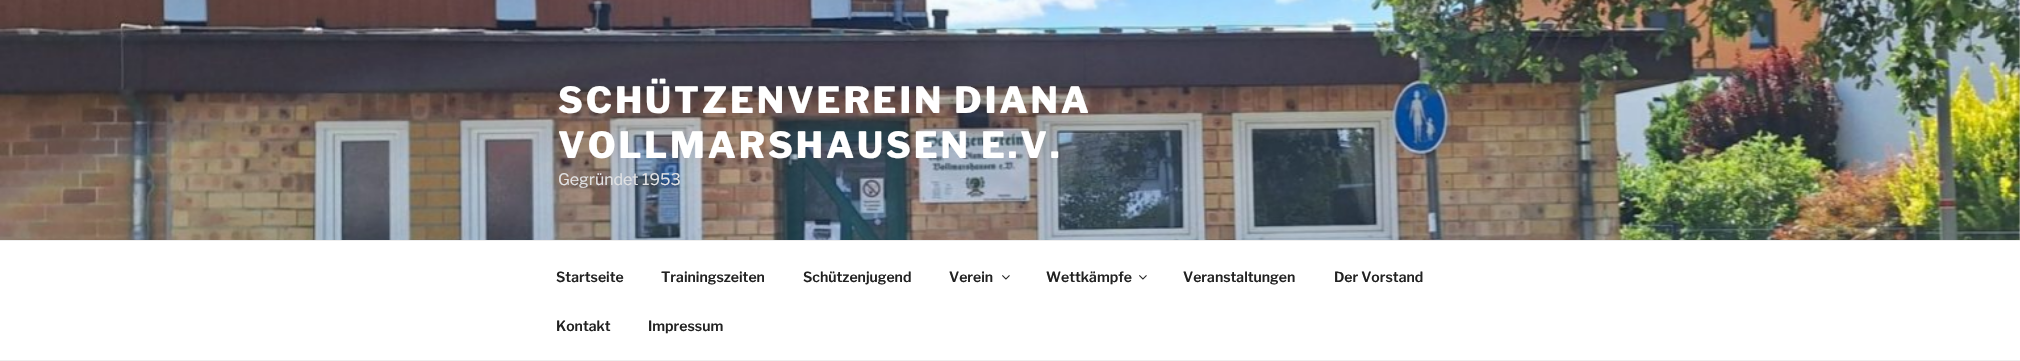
void draw(SkCanvas* canvas) {
    SkPaint paint;
    paint.setAntiAlias(true);
    auto face = [&](const char* family, int weight, float size, bool italic = false) {
        SkFontStyle style(weight, SkFontStyle::kNormal_Width,
            italic ? SkFontStyle::kItalic_Slant : SkFontStyle::kUpright_Slant);
        SkFont result(fontMgr->matchFamilyStyle(family, style), size);
        result.setSubpixel(true);
        return result;
    };
    auto write = [&](const char* s, float x, float y, const SkFont& font, SkColor color) {
        SkPaint ink(SkColor4f::FromColor(color));
        ink.setAntiAlias(true);
        canvas->drawString(s, x, y, font, ink);
    };
    auto writeSpaced = [&](const char* s, float x, float y, const SkFont& font, const SkPaint& ink, float letter, float word) {
        std::vector<SkGlyphID> glyphs(font.countText(s, strlen(s), SkTextEncoding::kUTF8));
        std::vector<float> xs(glyphs.size());
        font.textToGlyphs(s, strlen(s), SkTextEncoding::kUTF8, glyphs);
        font.getXPos(glyphs, xs, x);
        float extra = 0;
        for (size_t i = 0; i < glyphs.size(); i++) {
            xs[i] += extra;
            extra += letter + word * (glyphs[i] == font.unicharToGlyph(' '));
        }
        canvas->drawTextBlob(SkTextBlob::MakeFromPosHGlyphs(glyphs, xs, y, font), 0, 0, ink);
    };
    auto block = [&](float x, float y, float w, float h, SkColor color) {
        SkPaint ink(SkColor4f::FromColor(color));
        ink.setAntiAlias(true);
        canvas->drawRect(SkRect::MakeXYWH(x, y, w, h), ink);
    };
    auto paste = [&](const char* path, float x, float y, float w, float h) {
        auto image = SkImages::DeferredFromEncodedData(SkData::MakeFromFileName(path));
        canvas->drawImageRect(image, SkRect::MakeXYWH(x, y, w, h), SkSamplingOptions());
    };
    canvas->clear(SK_ColorWHITE);
    paste("pic1.png", 0, 0, 2020, 240);
    auto kFont1 = face("Libre Franklin", 100, 36);
    paint.setColor(SK_ColorWHITE);
    writeSpaced("SCHÜTZENVEREIN DIANA", 558, 113, kFont1, paint, 2.9f, 0);
    writeSpaced("VOLLMARSHAUSEN E.V.", 558, 158, kFont1, paint, 2.9f, 0);
    auto kFont2 = face("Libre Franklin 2", 100, 16);
    write("Gegründet 1953", 558, 185, kFont2, SkColorSetRGB(226, 227, 229));
    block(0, 240, 2020, 1, SkColorSetRGB(238, 238, 238));
    block(0, 360, 2020, 1, SkColorSetRGB(238, 238, 238));
    auto kFont3 = face("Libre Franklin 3", 100, 14);
    write("Startseite", 556, 282, kFont3, SkColorSetRGB(34, 34, 34));
    write("Trainingszeiten", 661, 282, kFont3, SkColorSetRGB(34, 34, 34));
    write("Schützenjugend", 803, 282, kFont3, SkColorSetRGB(34, 34, 34));
    write("Verein", 949, 282, kFont3, SkColorSetRGB(34, 34, 34));
    paste("pic2.png", 1002, 275, 8, 5);
    write("Wettkämpfe", 1046, 282, kFont3, SkColorSetRGB(34, 34, 34));
    paste("pic2.png", 1139, 275, 8, 5);
    write("Veranstaltungen", 1183, 282, kFont3, SkColorSetRGB(34, 34, 34));
    write("Der Vorstand", 1334, 282, kFont3, SkColorSetRGB(34, 34, 34));
    write("Kontakt", 556, 331, kFont3, SkColorSetRGB(34, 34, 34));
    write("Impressum", 648, 331, kFont3, SkColorSetRGB(34, 34, 34));
}
